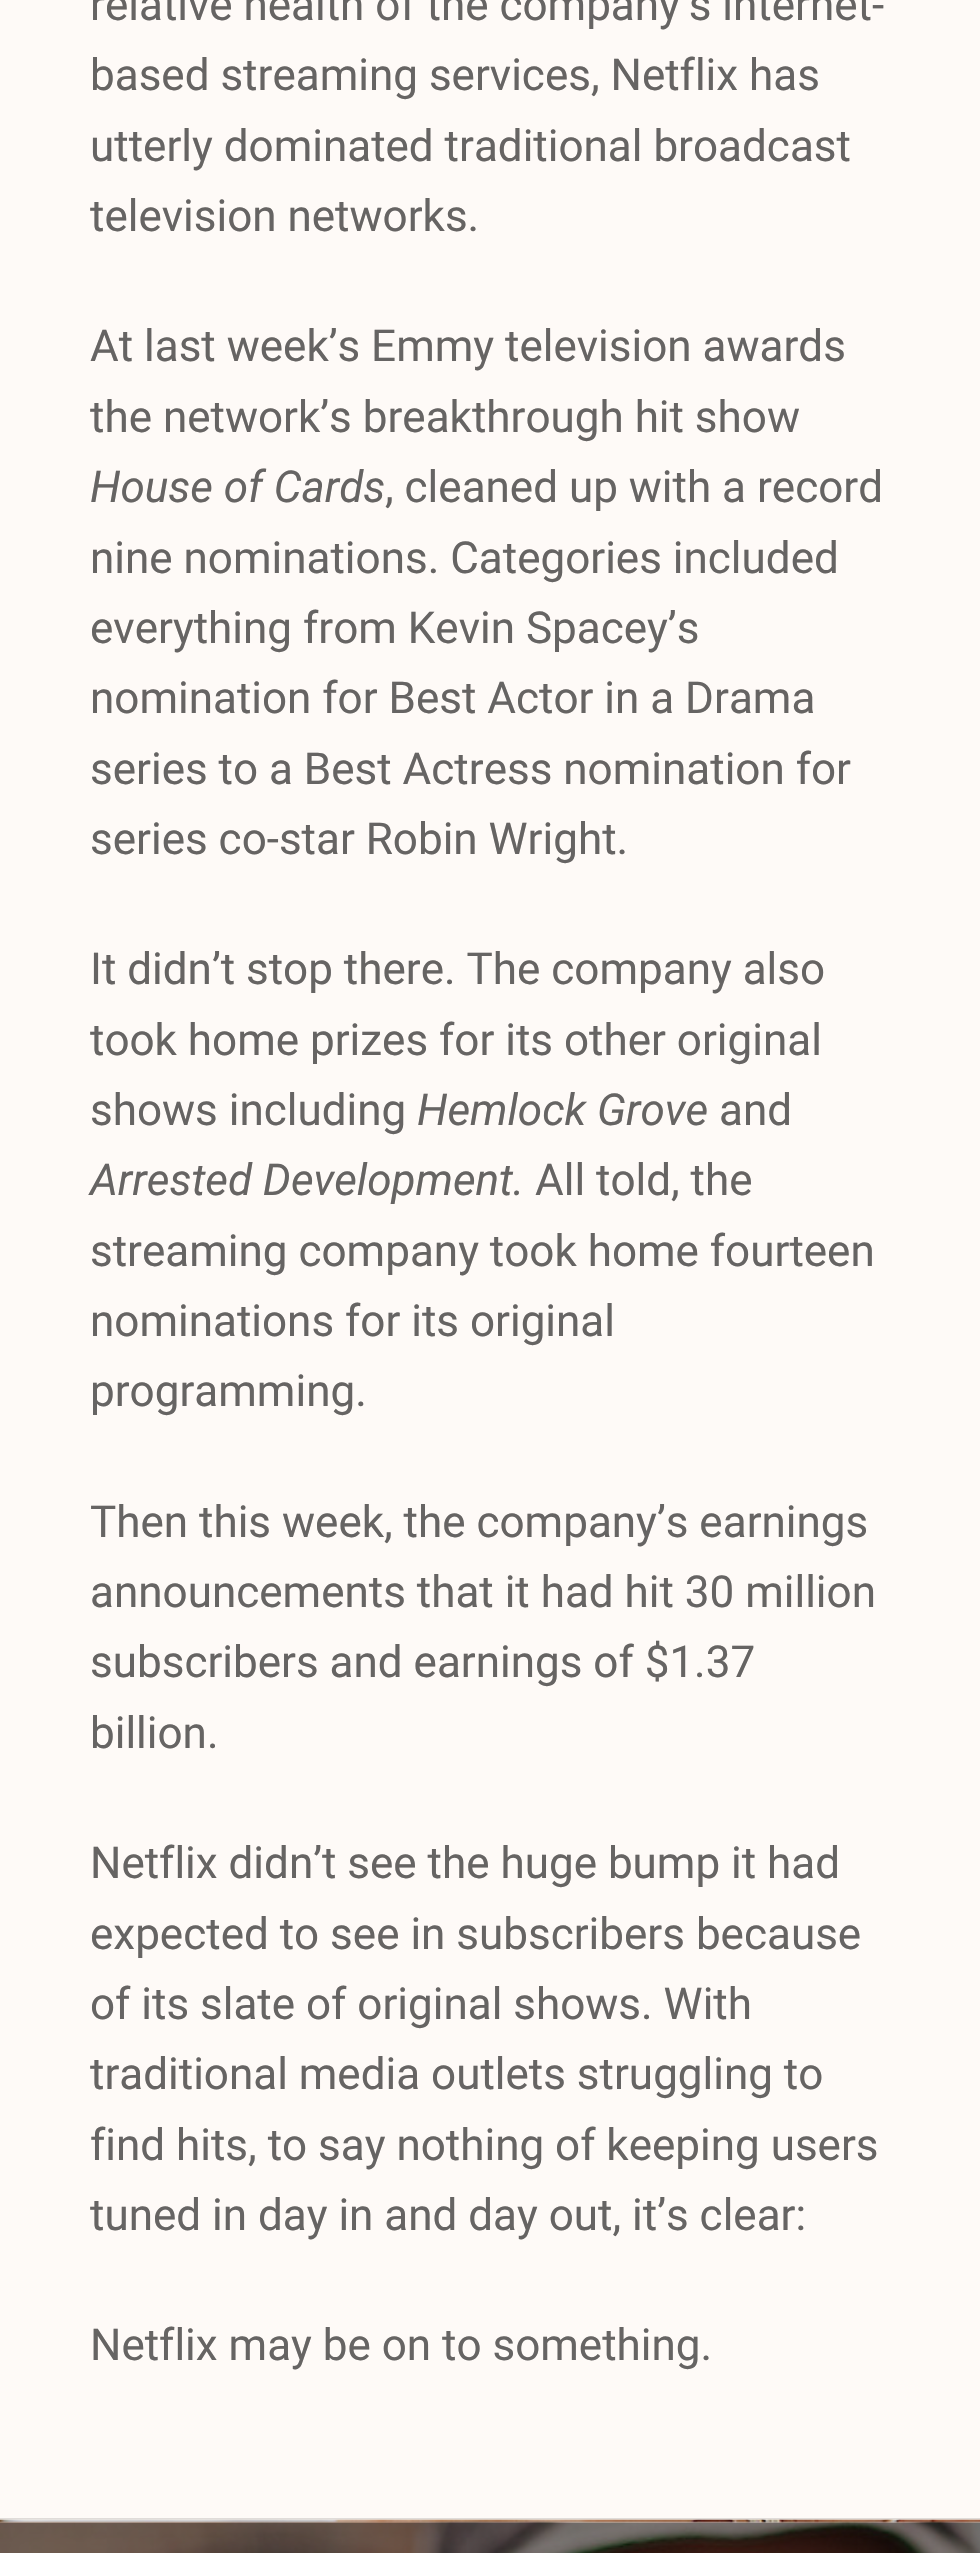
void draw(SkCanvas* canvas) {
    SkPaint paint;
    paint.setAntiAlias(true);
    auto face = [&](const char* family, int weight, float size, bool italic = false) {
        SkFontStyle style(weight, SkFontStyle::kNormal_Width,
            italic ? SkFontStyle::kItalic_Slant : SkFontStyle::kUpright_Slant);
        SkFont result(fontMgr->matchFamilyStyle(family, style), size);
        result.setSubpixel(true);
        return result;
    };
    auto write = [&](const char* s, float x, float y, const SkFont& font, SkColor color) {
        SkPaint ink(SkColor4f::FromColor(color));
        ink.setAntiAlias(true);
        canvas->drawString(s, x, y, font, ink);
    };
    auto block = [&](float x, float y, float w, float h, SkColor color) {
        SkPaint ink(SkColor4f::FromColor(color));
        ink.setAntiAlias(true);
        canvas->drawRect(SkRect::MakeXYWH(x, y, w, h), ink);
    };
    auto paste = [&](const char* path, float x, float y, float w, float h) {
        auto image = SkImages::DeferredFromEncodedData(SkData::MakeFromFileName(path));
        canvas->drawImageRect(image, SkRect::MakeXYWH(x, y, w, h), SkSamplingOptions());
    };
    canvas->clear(SkColorSetRGB(254, 250, 247));
    auto kFont1 = face("Roboto", 400, 44);
    write("relative health of the company’s internet-", 90, 20, kFont1, SkColorSetRGB(102, 100, 99));
    write("based streaming services, Netflix has", 90, 90, kFont1, SkColorSetRGB(102, 100, 99));
    write("utterly dominated traditional broadcast", 90, 161, kFont1, SkColorSetRGB(102, 100, 99));
    write("television networks.", 90, 231, kFont1, SkColorSetRGB(102, 100, 99));
    write("At last week’s Emmy television awards", 90, 361, kFont1, SkColorSetRGB(102, 100, 99));
    write("the network’s breakthrough hit show", 90, 432, kFont1, SkColorSetRGB(102, 100, 99));
    auto kFont2 = face("Roboto", 400, 44, true);
    write("House of Cards", 90, 502, kFont2, SkColorSetRGB(102, 100, 99));
    write(", cleaned up with a record", 385, 502, kFont1, SkColorSetRGB(102, 100, 99));
    write("nine nominations. Categories included", 90, 573, kFont1, SkColorSetRGB(102, 100, 99));
    write("everything from Kevin Spacey’s", 90, 643, kFont1, SkColorSetRGB(102, 100, 99));
    write("nomination for Best Actor in a Drama", 90, 713, kFont1, SkColorSetRGB(102, 100, 99));
    write("series to a Best Actress nomination for", 90, 784, kFont1, SkColorSetRGB(102, 100, 99));
    write("series co-star Robin Wright.", 90, 854, kFont1, SkColorSetRGB(102, 100, 99));
    write("It didn’t stop there. The company also", 90, 984, kFont1, SkColorSetRGB(102, 100, 99));
    write("took home prizes for its other original", 90, 1055, kFont1, SkColorSetRGB(102, 100, 99));
    write("shows including", 90, 1125, kFont1, SkColorSetRGB(102, 100, 99));
    write("Hemlock Grove", 417, 1125, kFont2, SkColorSetRGB(102, 100, 99));
    write("and", 719, 1125, kFont1, SkColorSetRGB(102, 100, 99));
    write("Arrested Development.", 90, 1195, kFont2, SkColorSetRGB(102, 100, 99));
    write("All told, the", 535, 1195, kFont1, SkColorSetRGB(102, 100, 99));
    write("streaming company took home fourteen", 90, 1266, kFont1, SkColorSetRGB(102, 100, 99));
    write("nominations for its original", 90, 1336, kFont1, SkColorSetRGB(102, 100, 99));
    write("programming.", 90, 1406, kFont1, SkColorSetRGB(102, 100, 99));
    write("Then this week, the company’s earnings", 90, 1537, kFont1, SkColorSetRGB(102, 100, 99));
    write("announcements that it had hit 30 million", 90, 1607, kFont1, SkColorSetRGB(102, 100, 99));
    write("subscribers and earnings of $1.37", 90, 1677, kFont1, SkColorSetRGB(102, 100, 99));
    write("billion.", 90, 1748, kFont1, SkColorSetRGB(102, 100, 99));
    write("Netflix didn’t see the huge bump it had", 90, 1878, kFont1, SkColorSetRGB(102, 100, 99));
    write("expected to see in subscribers because", 90, 1949, kFont1, SkColorSetRGB(102, 100, 99));
    write("of its slate of original shows. With", 90, 2019, kFont1, SkColorSetRGB(102, 100, 99));
    write("traditional media outlets struggling to", 90, 2089, kFont1, SkColorSetRGB(102, 100, 99));
    write("find hits, to say nothing of keeping users", 90, 2160, kFont1, SkColorSetRGB(102, 100, 99));
    write("tuned in day in and day out, it’s clear:", 90, 2230, kFont1, SkColorSetRGB(102, 100, 99));
    write("Netflix may be on to something.", 90, 2360, kFont1, SkColorSetRGB(102, 100, 99));
    block(0, 2518, 980, 2, SkColorSetRGB(224, 220, 217));
    paste("pic1.png", 0, 2519, 980, 34);
    block(0, 2520, 980, 3, SkColorSetARGB(31, 0, 0, 0));
    block(0, 2523, 980, 30, SkColorSetARGB(102, 0, 0, 0));
}
